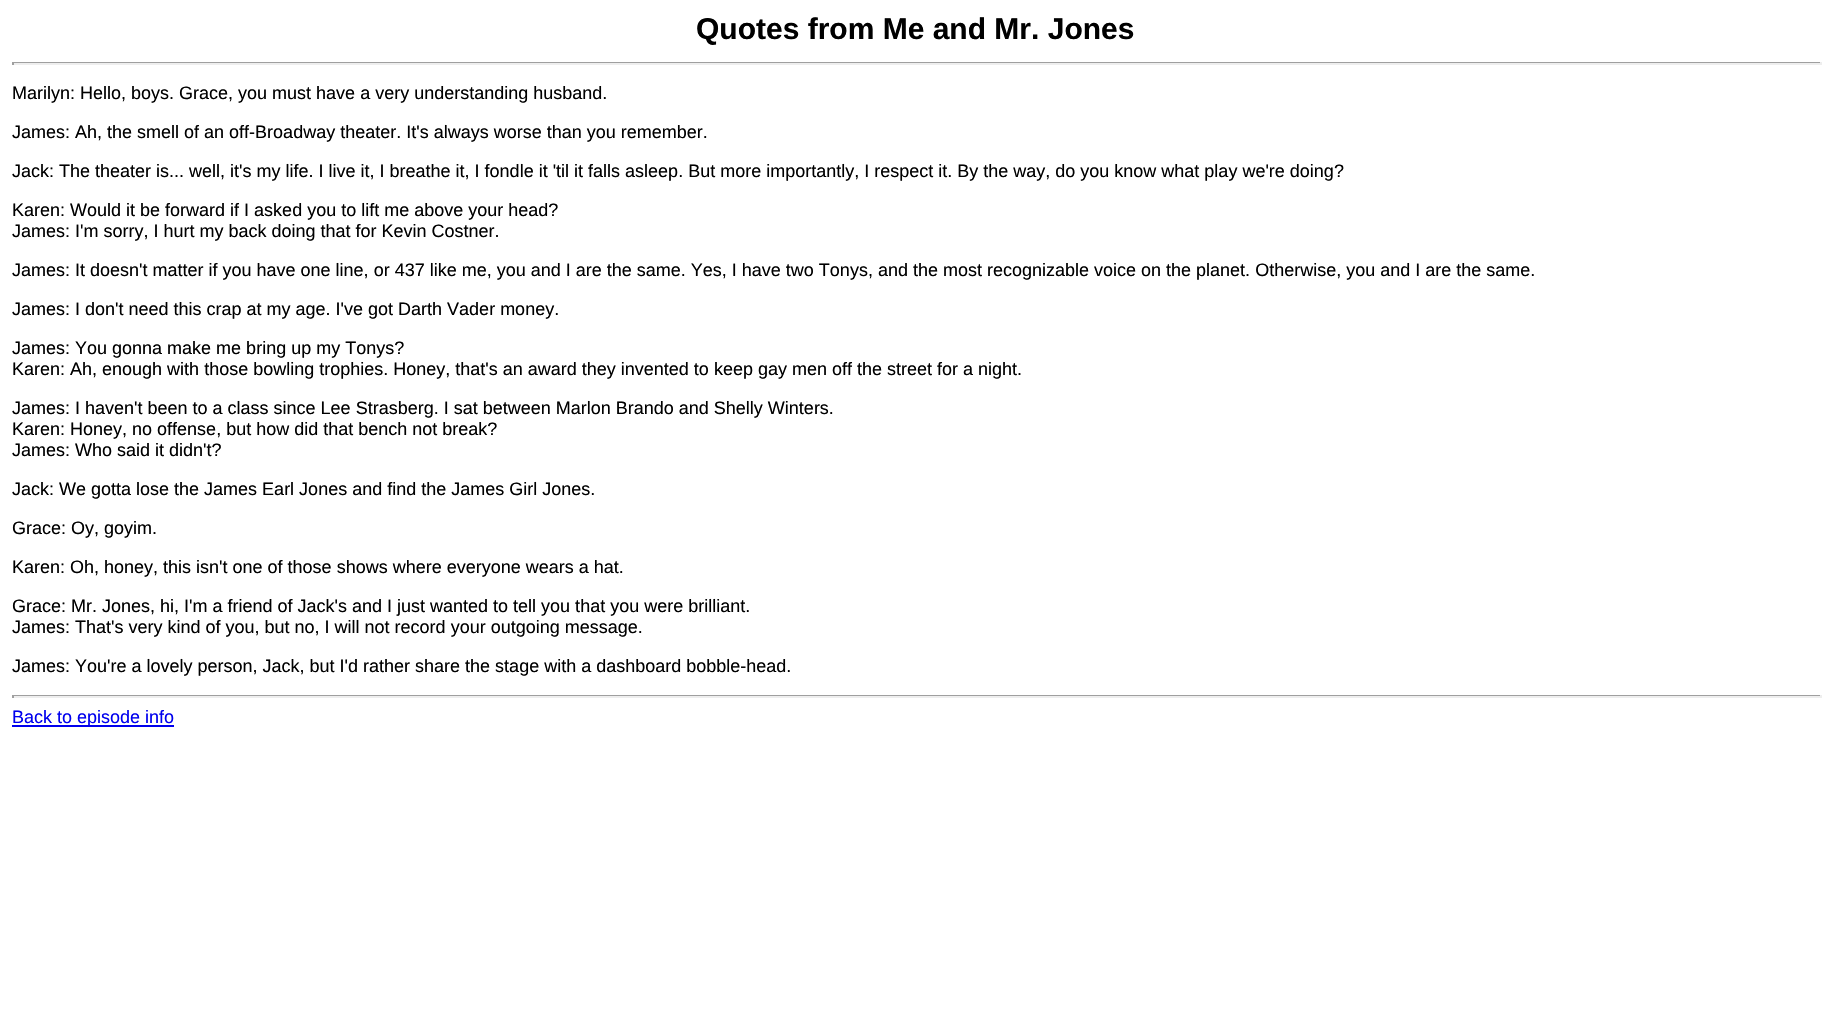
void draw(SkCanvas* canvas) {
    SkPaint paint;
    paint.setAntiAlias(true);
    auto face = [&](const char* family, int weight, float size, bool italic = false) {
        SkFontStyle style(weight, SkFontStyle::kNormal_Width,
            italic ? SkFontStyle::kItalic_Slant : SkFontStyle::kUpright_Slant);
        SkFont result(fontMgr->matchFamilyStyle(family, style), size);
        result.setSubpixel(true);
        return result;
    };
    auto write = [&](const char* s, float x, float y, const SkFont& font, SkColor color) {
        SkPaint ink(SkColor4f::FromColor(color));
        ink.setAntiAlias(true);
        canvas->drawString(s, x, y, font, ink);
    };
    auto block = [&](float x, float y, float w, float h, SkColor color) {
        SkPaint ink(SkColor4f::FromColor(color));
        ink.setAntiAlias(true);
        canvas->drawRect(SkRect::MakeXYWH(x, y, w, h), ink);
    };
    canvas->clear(SK_ColorWHITE);
    auto kFont1 = face("Liberation Sans", 700, 30);
    write("Quotes from Me and Mr. Jones", 696, 39, kFont1, SK_ColorBLACK);
    block(12, 62, 1809, 1, SkColorSetRGB(159, 159, 159));
    block(1820, 62, 2, 3, SkColorSetRGB(238, 238, 238));
    block(12, 63, 1809, 2, SkColorSetRGB(238, 238, 238));
    block(12, 62, 2, 3, SkColorSetRGB(159, 159, 159));
    auto kFont2 = face("Liberation Sans", 400, 18);
    write("Marilyn: Hello, boys. Grace, you must have a very understanding husband.", 12, 99, kFont2, SK_ColorBLACK);
    write("James: Ah, the smell of an off-Broadway theater. It's always worse than you remember.", 12, 138, kFont2, SK_ColorBLACK);
    write("Jack: The theater is... well, it's my life. I live it, I breathe it, I fondle it 'til it falls asleep. But more importantly, I respect it. By the way, do you know what play we're doing?", 12, 177, kFont2, SK_ColorBLACK);
    write("Karen: Would it be forward if I asked you to lift me above your head?", 12, 216, kFont2, SK_ColorBLACK);
    write("James: I'm sorry, I hurt my back doing that for Kevin Costner.", 12, 237, kFont2, SK_ColorBLACK);
    write("James: It doesn't matter if you have one line, or 437 like me, you and I are the same. Yes, I have two Tonys, and the most recognizable voice on the planet. Otherwise, you and I are the same.", 12, 276, kFont2, SK_ColorBLACK);
    write("James: I don't need this crap at my age. I've got Darth Vader money.", 12, 315, kFont2, SK_ColorBLACK);
    write("James: You gonna make me bring up my Tonys?", 12, 354, kFont2, SK_ColorBLACK);
    write("Karen: Ah, enough with those bowling trophies. Honey, that's an award they invented to keep gay men off the street for a night.", 12, 375, kFont2, SK_ColorBLACK);
    write("James: I haven't been to a class since Lee Strasberg. I sat between Marlon Brando and Shelly Winters.", 12, 414, kFont2, SK_ColorBLACK);
    write("Karen: Honey, no offense, but how did that bench not break?", 12, 435, kFont2, SK_ColorBLACK);
    write("James: Who said it didn't?", 12, 456, kFont2, SK_ColorBLACK);
    write("Jack: We gotta lose the James Earl Jones and find the James Girl Jones.", 12, 495, kFont2, SK_ColorBLACK);
    write("Grace: Oy, goyim.", 12, 534, kFont2, SK_ColorBLACK);
    write("Karen: Oh, honey, this isn't one of those shows where everyone wears a hat.", 12, 573, kFont2, SK_ColorBLACK);
    write("Grace: Mr. Jones, hi, I'm a friend of Jack's and I just wanted to tell you that you were brilliant.", 12, 612, kFont2, SK_ColorBLACK);
    write("James: That's very kind of you, but no, I will not record your outgoing message.", 12, 633, kFont2, SK_ColorBLACK);
    write("James: You're a lovely person, Jack, but I'd rather share the stage with a dashboard bobble-head.", 12, 672, kFont2, SK_ColorBLACK);
    block(12, 695, 1809, 1, SkColorSetRGB(159, 159, 159));
    block(1820, 695, 2, 3, SkColorSetRGB(238, 238, 238));
    block(12, 696, 1809, 2, SkColorSetRGB(238, 238, 238));
    block(12, 695, 2, 3, SkColorSetRGB(159, 159, 159));
    block(12, 725, 162, 2, SkColorSetRGB(0, 0, 238));
    write("Back to episode info", 12, 723, kFont2, SkColorSetRGB(0, 0, 238));
}
